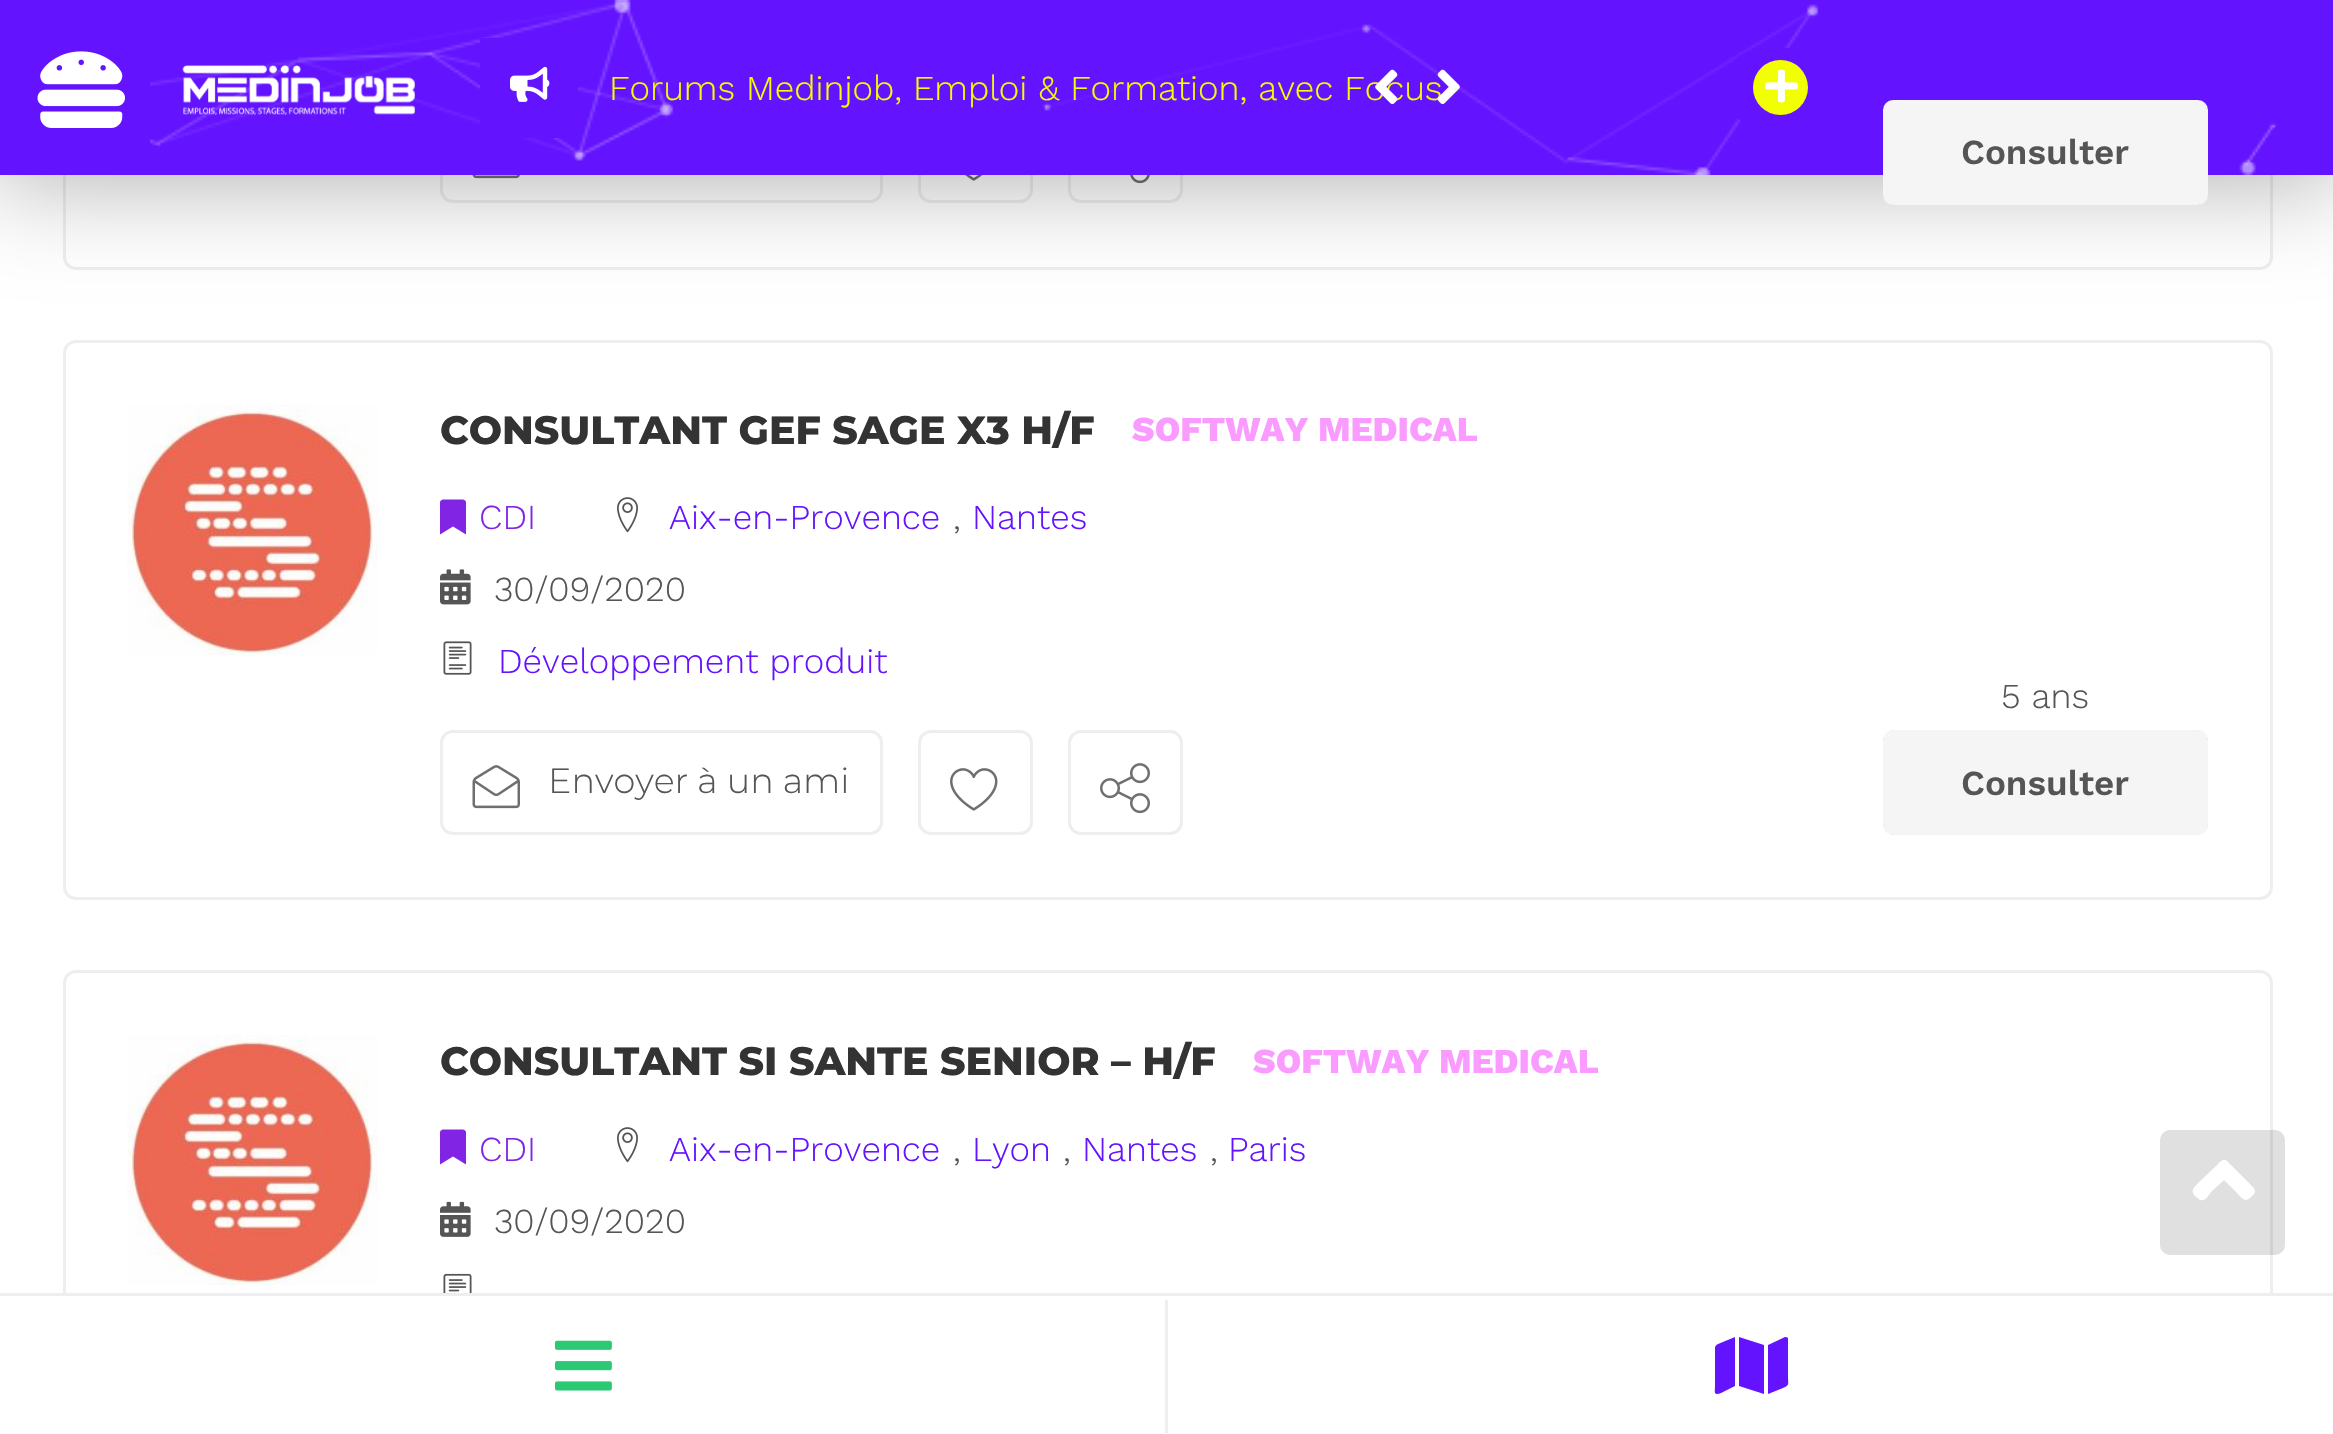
void draw(SkCanvas* canvas) {
    SkPaint paint;
    paint.setAntiAlias(true);
    auto face = [&](const char* family, int weight, float size, bool italic = false) {
        SkFontStyle style(weight, SkFontStyle::kNormal_Width,
            italic ? SkFontStyle::kItalic_Slant : SkFontStyle::kUpright_Slant);
        SkFont result(fontMgr->matchFamilyStyle(family, style), size);
        result.setSubpixel(true);
        return result;
    };
    auto write = [&](const char* s, float x, float y, const SkFont& font, SkColor color) {
        SkPaint ink(SkColor4f::FromColor(color));
        ink.setAntiAlias(true);
        canvas->drawString(s, x, y, font, ink);
    };
    auto block = [&](float x, float y, float w, float h, SkColor color) {
        SkPaint ink(SkColor4f::FromColor(color));
        ink.setAntiAlias(true);
        canvas->drawRect(SkRect::MakeXYWH(x, y, w, h), ink);
    };
    auto card = [&](float x, float y, float w, float h, float radius, SkColor color) {
        SkPaint ink(SkColor4f::FromColor(color));
        ink.setAntiAlias(true);
        canvas->drawRoundRect(SkRect::MakeXYWH(x, y, w, h), radius, radius, ink);
    };
    auto paste = [&](const char* path, float x, float y, float w, float h) {
        auto image = SkImages::DeferredFromEncodedData(SkData::MakeFromFileName(path));
        canvas->drawImageRect(image, SkRect::MakeXYWH(x, y, w, h), SkSamplingOptions());
    };
    canvas->clear(SK_ColorWHITE);
    paint.setStyle(SkPaint::kStroke_Style);
    paint.setStrokeWidth(3);
    paint.setColor(SkColorSetRGB(238, 238, 238));
    canvas->drawRoundRect(SkRect::MakeXYWH(64.5f, -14.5f, 2207, 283), 11.5f, 11.5f, paint);
    canvas->drawRoundRect(SkRect::MakeXYWH(441.5f, 101.5f, 440, 100), 11.5f, 11.5f, paint);
    paste("pic8.png", 472, 175, 48, 4);
    canvas->drawRoundRect(SkRect::MakeXYWH(919.5f, 101.5f, 112, 100), 11.5f, 11.5f, paint);
    paste("pic9.png", 965, 175, 18, 6);
    canvas->drawRoundRect(SkRect::MakeXYWH(1069.5f, 101.5f, 112, 100), 11.5f, 11.5f, paint);
    paste("pic10.png", 1130, 175, 20, 9);
    paint.setColor(SkColorSetRGB(100, 19, 255));
    canvas->drawRoundRect(SkRect::MakeXYWH(1884.5f, 101.5f, 322, 102), 11.5f, 11.5f, paint);
    paint.setStyle(SkPaint::kFill_Style);
    paint.setColor(SkColorSetARGB(77, 0, 0, 0));
    paint.setMaskFilter(SkMaskFilter::MakeBlur(kNormal_SkBlurStyle, 50));
    canvas->drawRect(SkRect::MakeXYWH(-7, -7, 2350, 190), paint);
    paint.setMaskFilter(nullptr);
    block(0, 0, 2333, 175, SkColorSetRGB(100, 19, 255));
    paste("pic1.png", 150, 0, 2126, 175);
    paste("pic2.png", 37, 51, 88, 77);
    paste("pic3.png", 182, 65, 233, 50);
    block(480, 38, 98, 100, SkColorSetRGB(100, 19, 255));
    paste("pic4.png", 510, 66, 40, 36);
    auto kFont1 = face("Work Sans", 300, 35);
    write("Forums Medinjob, Emploi & Formation, avec Focus", 609, 100, kFont1, SkColorSetRGB(241, 255, 0));
    paste("pic5.png", 1375, 69, 23, 35);
    paste("pic6.png", 1437, 69, 23, 35);
    card(1723, 48, 115, 80, 40, SkColorSetRGB(100, 19, 255));
    paint.setColor(SkColorSetRGB(241, 255, 0));
    canvas->drawCircle(1780.5f, 87.5f, 27.5f, paint);
    paste("pic7.png", 1765, 69, 33, 34);
    card(1883, 100, 325, 105, 10, SkColorSetRGB(245, 245, 245));
    auto kFont2 = face("Work Sans", 600, 35);
    write("Consulter", 1961, 164, kFont2, SkColorSetRGB(85, 85, 85));
    paint.setStyle(SkPaint::kStroke_Style);
    paint.setColor(SkColorSetRGB(238, 238, 238));
    canvas->drawRoundRect(SkRect::MakeXYWH(64.5f, 341.5f, 2207, 557), 11.5f, 11.5f, paint);
    paste("pic11.png", 127, 405, 251, 250);
    auto kFont3 = face("Montserrat", 800, 39.4f);
    write("CONSULTANT GEF SAGE X3 H/F", 440, 444, kFont3, SkColorSetRGB(51, 51, 51));
    auto kFont4 = face("Work Sans", 800, 35);
    write("SOFTWAY MEDICAL", 1132, 441, kFont4, SkColorSetRGB(250, 155, 255));
    paint.setStyle(SkPaint::kFill_Style);
    paint.setColor(SkColorSetRGB(130, 36, 227));
    canvas->drawPath(SkPathBuilder().moveTo(440, 534.5f).lineTo(440, 502).cubicTo(440.5f, 499, 444, 499.5f, 446.5f, 499.5f).lineTo(459.5f, 499.5f).cubicTo(462, 499.5f, 465.5f, 499, 466, 502).lineTo(466, 534.5f).lineTo(453, 526.5f).close().detach(), paint);
    write("CDI", 479, 529, kFont1, SkColorSetRGB(130, 36, 227));
    paste("pic12.png", 617, 497, 21, 36);
    write("Aix-en-Provence", 669, 529, kFont1, SkColorSetRGB(100, 19, 255));
    write(",", 953, 529, kFont1, SkColorSetRGB(85, 85, 85));
    write("Nantes", 972, 529, kFont1, SkColorSetRGB(100, 19, 255));
    paste("pic13.png", 440, 569, 31, 36);
    write("30/09/2020", 494, 601, kFont1, SkColorSetRGB(85, 85, 85));
    paste("pic14.png", 443, 641, 29, 34);
    write("Développement produit", 498, 673, kFont1, SkColorSetRGB(100, 19, 255));
    paint.setStyle(SkPaint::kStroke_Style);
    paint.setColor(SkColorSetRGB(238, 238, 238));
    canvas->drawRoundRect(SkRect::MakeXYWH(441.5f, 731.5f, 440, 102), 11.5f, 11.5f, paint);
    paste("pic15.png", 472, 765, 48, 44);
    auto kFont5 = face("Montserrat", 300, 35);
    write("Envoyer à un ami", 548, 793, kFont5, SkColorSetRGB(85, 85, 85));
    canvas->drawRoundRect(SkRect::MakeXYWH(919.5f, 731.5f, 112, 102), 11.5f, 11.5f, paint);
    paste("pic16.png", 950, 768, 48, 43);
    canvas->drawRoundRect(SkRect::MakeXYWH(1069.5f, 731.5f, 112, 102), 11.5f, 11.5f, paint);
    paste("pic17.png", 1100, 763, 50, 51);
    write("5 ans", 2001, 708, kFont1, SkColorSetRGB(85, 85, 85));
    paint.setColor(SkColorSetRGB(100, 19, 255));
    canvas->drawRoundRect(SkRect::MakeXYWH(1884.5f, 731.5f, 322, 102), 11.5f, 11.5f, paint);
    card(1883, 730, 325, 105, 10, SkColorSetRGB(245, 245, 245));
    write("Consulter", 1961, 795, kFont2, SkColorSetRGB(85, 85, 85));
    paint.setColor(SkColorSetRGB(238, 238, 238));
    canvas->drawRoundRect(SkRect::MakeXYWH(64.5f, 971.5f, 2207, 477), 11.5f, 11.5f, paint);
    paste("pic11.png", 127, 1035, 251, 250);
    write("CONSULTANT SI SANTE SENIOR – H/F", 440, 1075, kFont3, SkColorSetRGB(51, 51, 51));
    write("SOFTWAY MEDICAL", 1253, 1073, kFont4, SkColorSetRGB(250, 155, 255));
    paint.setStyle(SkPaint::kFill_Style);
    paint.setColor(SkColorSetRGB(130, 36, 227));
    canvas->drawPath(SkPathBuilder().moveTo(440, 1164.5f).lineTo(440, 1132).cubicTo(440.5f, 1129, 444, 1129.5f, 446.5f, 1129.5f).lineTo(459.5f, 1129.5f).cubicTo(462, 1129.5f, 465.5f, 1129, 466, 1132).lineTo(466, 1164.5f).lineTo(453, 1156.5f).close().detach(), paint);
    write("CDI", 479, 1161, kFont1, SkColorSetRGB(130, 36, 227));
    paste("pic12.png", 617, 1127, 21, 36);
    write("Aix-en-Provence", 669, 1161, kFont1, SkColorSetRGB(100, 19, 255));
    write(",", 953, 1161, kFont1, SkColorSetRGB(85, 85, 85));
    write("Lyon", 972, 1161, kFont1, SkColorSetRGB(100, 19, 255));
    write(",", 1063, 1161, kFont1, SkColorSetRGB(85, 85, 85));
    write("Nantes", 1082, 1161, kFont1, SkColorSetRGB(100, 19, 255));
    write(",", 1210, 1161, kFont1, SkColorSetRGB(85, 85, 85));
    write("Paris", 1228, 1161, kFont1, SkColorSetRGB(100, 19, 255));
    paste("pic18.png", 440, 1201, 31, 36);
    write("30/09/2020", 494, 1233, kFont1, SkColorSetRGB(85, 85, 85));
    paste("pic19.png", 443, 1273, 29, 20);
    block(63, 1296, 2210, 138, SK_ColorWHITE);
    block(0, 1293, 2333, 3, SkColorSetRGB(238, 238, 238));
    block(1165, 1300, 3, 133, SkColorSetRGB(238, 238, 238));
    paste("pic20.png", 555, 1340, 57, 51);
    paint.setColor(SkColorSetRGB(100, 19, 255));
    canvas->drawPath(SkPathBuilder().moveTo(1715, 1348).cubicTo(1715, 1346, 1716, 1345, 1718, 1344).lineTo(1735, 1337).lineTo(1735, 1386).lineTo(1721, 1393).cubicTo(1713, 1396, 1715, 1392, 1715, 1385).close().moveTo(1739, 1386).lineTo(1739, 1337).lineTo(1764, 1345).lineTo(1764, 1394).close().moveTo(1785, 1337).cubicTo(1786, 1337, 1787, 1337, 1788, 1338).lineTo(1788, 1376).cubicTo(1788, 1384, 1790, 1385, 1783, 1388).lineTo(1768, 1394).lineTo(1768, 1345).close().detach(), paint);
    card(2160, 1130, 125, 125, 10, SkColorSetARGB(31, 0, 0, 0));
    paint.setColor(SK_ColorWHITE);
    canvas->drawPath(SkPathBuilder().moveTo(2227, 1161).lineTo(2249, 1183).cubicTo(2252, 1186, 2257, 1190, 2254, 1194).lineTo(2250, 1198).cubicTo(2244, 1203, 2241, 1197, 2236, 1192).lineTo(2224, 1180).lineTo(2211, 1192).cubicTo(2209, 1195, 2205, 1202, 2200, 1200).lineTo(2195, 1196).cubicTo(2190, 1190, 2194, 1188, 2198, 1183).lineTo(2216, 1166).cubicTo(2219, 1163, 2223, 1157, 2227, 1161).close().detach(), paint);
}
